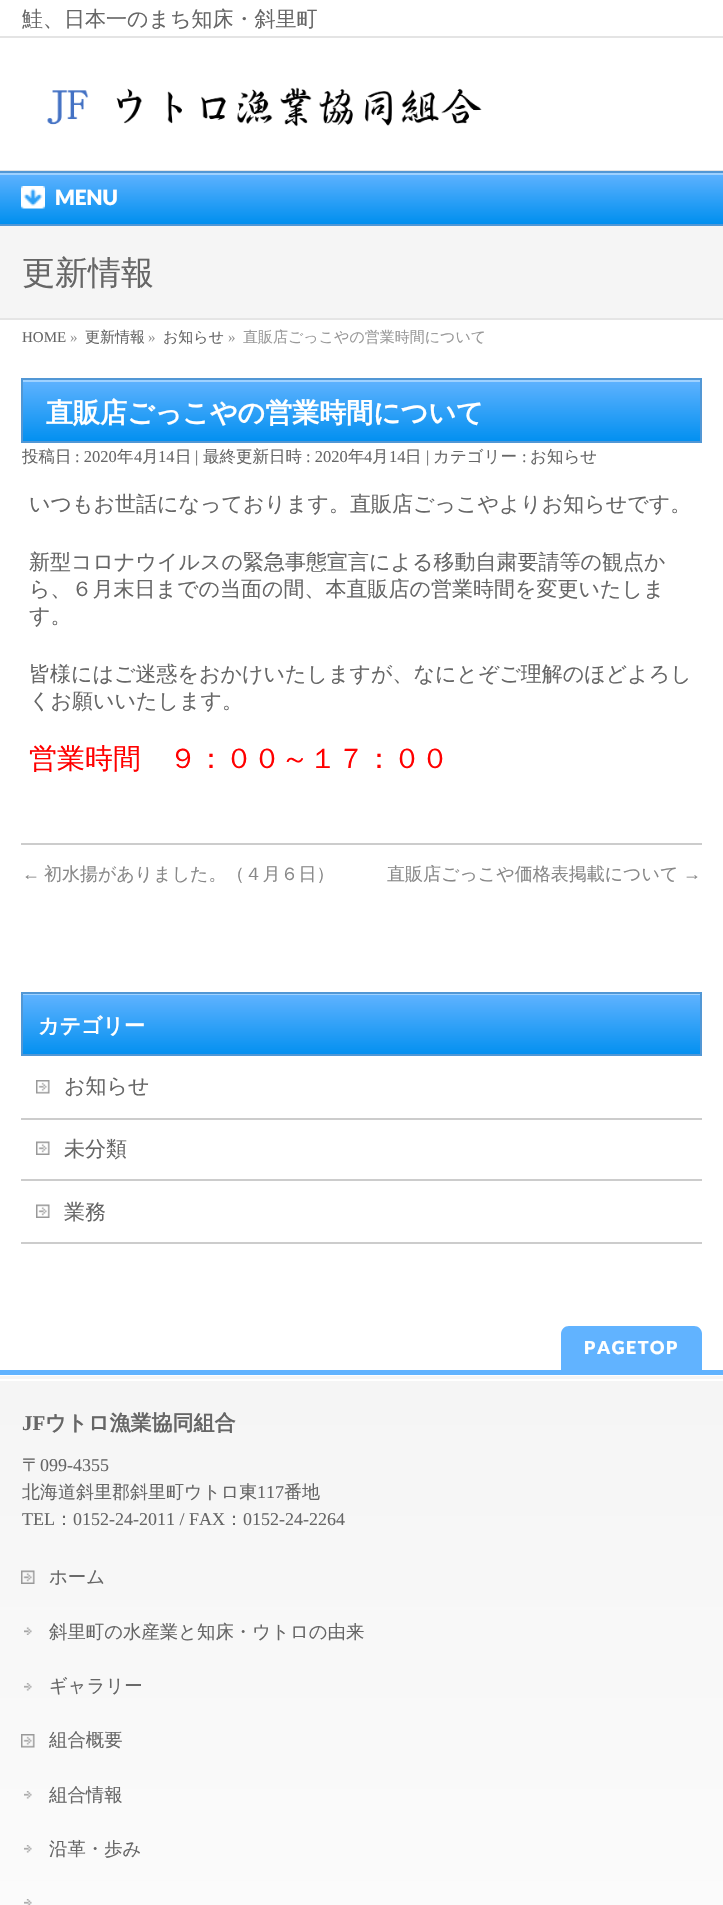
void draw(SkCanvas* canvas) {
    SkPaint paint;
    paint.setAntiAlias(true);
    auto face = [&](const char* family, int weight, float size, bool italic = false) {
        SkFontStyle style(weight, SkFontStyle::kNormal_Width,
            italic ? SkFontStyle::kItalic_Slant : SkFontStyle::kUpright_Slant);
        SkFont result(fontMgr->matchFamilyStyle(family, style), size);
        result.setSubpixel(true);
        return result;
    };
    auto write = [&](const char* s, float x, float y, const SkFont& font, SkColor color) {
        SkPaint ink(SkColor4f::FromColor(color));
        ink.setAntiAlias(true);
        canvas->drawString(s, x, y, font, ink);
    };
    auto writeSpaced = [&](const char* s, float x, float y, const SkFont& font, const SkPaint& ink, float letter, float word) {
        std::vector<SkGlyphID> glyphs(font.countText(s, strlen(s), SkTextEncoding::kUTF8));
        std::vector<float> xs(glyphs.size());
        font.textToGlyphs(s, strlen(s), SkTextEncoding::kUTF8, glyphs);
        font.getXPos(glyphs, xs, x);
        float extra = 0;
        for (size_t i = 0; i < glyphs.size(); i++) {
            xs[i] += extra;
            extra += letter + word * (glyphs[i] == font.unicharToGlyph(' '));
        }
        canvas->drawTextBlob(SkTextBlob::MakeFromPosHGlyphs(glyphs, xs, y, font), 0, 0, ink);
    };
    auto block = [&](float x, float y, float w, float h, SkColor color) {
        SkPaint ink(SkColor4f::FromColor(color));
        ink.setAntiAlias(true);
        canvas->drawRect(SkRect::MakeXYWH(x, y, w, h), ink);
    };
    auto paste = [&](const char* path, float x, float y, float w, float h) {
        auto image = SkImages::DeferredFromEncodedData(SkData::MakeFromFileName(path));
        canvas->drawImageRect(image, SkRect::MakeXYWH(x, y, w, h), SkSamplingOptions());
    };
    canvas->clear(SK_ColorWHITE);
    auto kFont1 = face("WenQuanYi Zen Hei", 500, 21);
    write("鮭、日本一のまち知床・斜里町", 22, 26, kFont1, SkColorSetRGB(102, 102, 102));
    block(0, 36, 723, 2, SkColorSetRGB(228, 228, 228));
    block(0, 170, 723, 1, SkColorSetRGB(228, 228, 228));
    paste("pic1.png", 47, 87, 435, 40);
    {
        const SkColor colors[] = {SkColorSetRGB(97, 179, 255), SkColorSetRGB(0, 143, 239)};
        const float stops[] = {0, 1};
        const SkPoint ends[] = {{362, 172}, {362, 224}};
        paint.setShader(SkGradientShader::MakeLinear(ends, colors, stops, 2, SkTileMode::kClamp));
        paint.setAlpha(255);
    }
    canvas->drawRect(SkRect::MakeXYWH(0, 175, 723, 49), paint);
    block(0, 173, 723, 2, SkColorSetRGB(158, 209, 255));
    block(0, 171, 723, 2, SkColorSetRGB(81, 151, 213));
    block(0, 224, 723, 2, SkColorSetRGB(81, 151, 213));
    paste("pic2.png", 21, 186, 24, 23);
    auto kFont2 = face("Lato", 900, 21);
    write("MENU", 55, 205, kFont2, SK_ColorWHITE);
    block(0, 226, 723, 92, SkColorSetRGB(245, 245, 245));
    block(0, 318, 723, 2, SkColorSetRGB(229, 229, 229));
    auto kFont3 = face("WenQuanYi Zen Hei", 500, 33);
    write("更新情報", 22, 284, kFont3, SkColorSetRGB(102, 102, 102));
    auto kFont4 = face("Liberation Serif", 400, 15);
    write("HOME", 22, 342, kFont4, SkColorSetRGB(102, 102, 102));
    write("»", 70, 342, kFont4, SkColorSetRGB(153, 153, 153));
    auto kFont5 = face("WenQuanYi Zen Hei", 500, 15);
    write("更新情報", 85, 342, kFont5, SkColorSetRGB(102, 102, 102));
    write("»", 148, 342, kFont4, SkColorSetRGB(153, 153, 153));
    write("お知らせ", 163, 342, kFont5, SkColorSetRGB(102, 102, 102));
    write("»", 228, 342, kFont4, SkColorSetRGB(153, 153, 153));
    write("直販店ごっこやの営業時間について", 243, 342, kFont5, SkColorSetRGB(153, 153, 153));
    {
        const SkColor colors[] = {SkColorSetRGB(97, 179, 255), SkColorSetRGB(3, 144, 240)};
        const float stops[] = {0, 1};
        const SkPoint ends[] = {{362, 379}, {362, 441}};
        paint.setShader(SkGradientShader::MakeLinear(ends, colors, stops, 2, SkTileMode::kClamp));
        paint.setAlpha(255);
    }
    canvas->drawRect(SkRect::MakeXYWH(23, 382, 677, 59), paint);
    block(23, 380, 678, 2, SkColorSetRGB(158, 209, 255));
    paint.setStyle(SkPaint::kStroke_Style);
    paint.setStrokeWidth(2);
    paint.setShader(nullptr);
    paint.setColor(SkColorSetRGB(81, 151, 213));
    canvas->drawRect(SkRect::MakeXYWH(22, 379, 679, 63), paint);
    auto kFont6 = face("WenQuanYi Zen Hei", 700, 27);
    write("直販店ごっこやの営業時間について", 46, 422, kFont6, SK_ColorWHITE);
    auto kFont7 = face("WenQuanYi Zen Hei", 500, 16.5f);
    write("投稿日", 22, 462, kFont7, SkColorSetRGB(102, 102, 102));
    auto kFont8 = face("Liberation Serif", 400, 16.5f);
    write(": 2020", 75, 462, kFont8, SkColorSetRGB(102, 102, 102));
    write("年", 117, 462, kFont7, SkColorSetRGB(102, 102, 102));
    write("4", 134, 462, kFont8, SkColorSetRGB(102, 102, 102));
    write("月", 142, 462, kFont7, SkColorSetRGB(102, 102, 102));
    write("14", 158, 462, kFont8, SkColorSetRGB(102, 102, 102));
    write("日", 175, 462, kFont7, SkColorSetRGB(102, 102, 102));
    write("|", 195, 462, kFont8, SkColorSetRGB(102, 102, 102));
    write("最終更新日時", 203, 462, kFont7, SkColorSetRGB(102, 102, 102));
    write(": 2020", 306, 462, kFont8, SkColorSetRGB(102, 102, 102));
    write("年", 348, 462, kFont7, SkColorSetRGB(102, 102, 102));
    write("4", 364, 462, kFont8, SkColorSetRGB(102, 102, 102));
    write("月", 372, 462, kFont7, SkColorSetRGB(102, 102, 102));
    write("14", 389, 462, kFont8, SkColorSetRGB(102, 102, 102));
    write("日", 405, 462, kFont7, SkColorSetRGB(102, 102, 102));
    write("|", 426, 462, kFont8, SkColorSetRGB(102, 102, 102));
    write("カテゴリー", 433, 462, kFont7, SkColorSetRGB(102, 102, 102));
    write(":", 522, 462, kFont8, SkColorSetRGB(102, 102, 102));
    write("お知らせ", 530, 462, kFont7, SkColorSetRGB(102, 102, 102));
    write("いつもお世話になっております。直販店ごっこやよりお知らせです。", 29, 511, kFont1, SkColorSetRGB(102, 102, 102));
    write("新型コロナウイルスの緊急事態宣言による移動自粛要請等の観点か", 29, 569, kFont1, SkColorSetRGB(102, 102, 102));
    write("ら、６月末日までの当面の間、本直販店の営業時間を変更いたしま", 29, 596, kFont1, SkColorSetRGB(102, 102, 102));
    write("す。", 29, 623, kFont1, SkColorSetRGB(102, 102, 102));
    write("皆様にはご迷惑をおかけいたしますが、なにとぞご理解のほどよろし", 29, 681, kFont1, SkColorSetRGB(102, 102, 102));
    write("くお願いいたします。", 29, 708, kFont1, SkColorSetRGB(102, 102, 102));
    auto kFont9 = face("WenQuanYi Zen Hei", 500, 28);
    write("営業時間　９：００～１７：００", 29, 768, kFont9, SkColorSetRGB(255, 0, 0));
    block(21, 843, 681, 2, SkColorSetRGB(204, 204, 204));
    auto kFont10 = face("Liberation Serif", 400, 18);
    write("←", 22, 880, kFont10, SkColorSetRGB(136, 136, 136));
    auto kFont11 = face("WenQuanYi Zen Hei", 500, 18);
    write("初水揚がありました。（４月６日）", 44, 880, kFont11, SkColorSetRGB(136, 136, 136));
    write("直販店ごっこや価格表掲載について", 387, 880, kFont11, SkColorSetRGB(136, 136, 136));
    write("→", 683, 880, kFont10, SkColorSetRGB(136, 136, 136));
    paint.setStyle(SkPaint::kFill_Style);
    {
        const SkColor colors[] = {SkColorSetRGB(97, 179, 255), SkColorSetRGB(3, 144, 240)};
        const float stops[] = {0, 1};
        const SkPoint ends[] = {{362, 993}, {362, 1055}};
        paint.setShader(SkGradientShader::MakeLinear(ends, colors, stops, 2, SkTileMode::kClamp));
        paint.setAlpha(255);
    }
    canvas->drawRect(SkRect::MakeXYWH(23, 995, 677, 59), paint);
    block(23, 994, 678, 1, SkColorSetRGB(159, 209, 255));
    paint.setStyle(SkPaint::kStroke_Style);
    paint.setShader(nullptr);
    paint.setColor(SkColorSetRGB(81, 151, 213));
    canvas->drawRect(SkRect::MakeXYWH(22, 993, 679, 62), paint);
    auto kFont12 = face("WenQuanYi Zen Hei", 700, 21);
    write("カテゴリー", 38, 1033, kFont12, SK_ColorWHITE);
    block(21, 1118, 681, 2, SkColorSetRGB(204, 204, 204));
    paste("pic3.png", 36, 1080, 14, 14);
    write("お知らせ", 64, 1093, kFont1, SkColorSetRGB(102, 102, 102));
    block(21, 1179, 681, 2, SkColorSetRGB(204, 204, 204));
    paste("pic4.png", 36, 1141, 14, 14);
    write("未分類", 64, 1156, kFont1, SkColorSetRGB(102, 102, 102));
    block(21, 1242, 681, 2, SkColorSetRGB(204, 204, 204));
    paste("pic4.png", 36, 1204, 14, 14);
    write("業務", 64, 1219, kFont1, SkColorSetRGB(102, 102, 102));
    paint.setStyle(SkPaint::kFill_Style);
    paint.setColor(SkColorSetRGB(97, 179, 255));
    canvas->drawPath(SkPathBuilder().moveTo(569, 1326).lineTo(694, 1326).cubicTo(698.5f, 1326, 702, 1329.5f, 702, 1334).lineTo(702, 1370).lineTo(561, 1370).lineTo(561, 1334).cubicTo(561, 1329.5f, 564.5f, 1326, 569, 1326).close().detach(), paint);
    auto kFont13 = face("Lato", 900, 18);
    paint.setColor(SK_ColorWHITE);
    writeSpaced("PAGETOP", 584, 1354, kFont13, paint, 1.5f, 0);
    block(0, 1376, 723, 3, SkColorSetRGB(245, 245, 245));
    block(0, 1370, 723, 5, SkColorSetRGB(97, 179, 255));
    {
        const SkColor colors[] = {SkColorSetRGB(245, 245, 245), SK_ColorWHITE};
        const float stops[] = {0, 1};
        const SkPoint ends[] = {{0, 1379}, {0, 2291}};
        paint.setShader(SkGradientShader::MakeLinear(ends, colors, stops, 2, SkTileMode::kClamp));
        paint.setAlpha(255);
    }
    canvas->drawRect(SkRect::MakeXYWH(0, 1381, 723, 524), paint);
    auto kFont14 = face("Liberation Serif", 700, 21);
    write("JF", 22, 1430, kFont14, SkColorSetRGB(102, 102, 102));
    write("ウトロ漁業協同組合", 45, 1430, kFont12, SkColorSetRGB(102, 102, 102));
    write("〒", 22, 1471, kFont11, SkColorSetRGB(102, 102, 102));
    write("099-4355", 40, 1471, kFont10, SkColorSetRGB(102, 102, 102));
    write("北海道斜里郡斜里町ウトロ東", 22, 1498, kFont11, SkColorSetRGB(102, 102, 102));
    write("117", 257, 1498, kFont10, SkColorSetRGB(102, 102, 102));
    write("番地", 284, 1498, kFont11, SkColorSetRGB(102, 102, 102));
    write("TEL", 22, 1525, kFont10, SkColorSetRGB(102, 102, 102));
    write("：", 55, 1525, kFont11, SkColorSetRGB(102, 102, 102));
    write("0152-24-2011 / FAX", 73, 1525, kFont10, SkColorSetRGB(102, 102, 102));
    write("：", 225, 1525, kFont11, SkColorSetRGB(102, 102, 102));
    write("0152-24-2264", 243, 1525, kFont10, SkColorSetRGB(102, 102, 102));
    paste("pic5.png", 21, 1570, 14, 14);
    auto kFont15 = face("WenQuanYi Zen Hei", 500, 18.4f);
    write("ホーム", 49, 1583, kFont15, SkColorSetRGB(102, 102, 102));
    paste("pic6.png", 24, 1627, 8, 8);
    write("斜里町の水産業と知床・ウトロの由来", 49, 1638, kFont15, SkColorSetRGB(102, 102, 102));
    paste("pic7.png", 24, 1683, 8, 8);
    write("ギャラリー", 49, 1692, kFont15, SkColorSetRGB(102, 102, 102));
    paste("pic8.png", 21, 1734, 14, 14);
    write("組合概要", 49, 1746, kFont15, SkColorSetRGB(102, 102, 102));
    paste("pic9.png", 24, 1791, 8, 8);
    write("組合情報", 49, 1801, kFont15, SkColorSetRGB(102, 102, 102));
    paste("pic9.png", 24, 1845, 8, 8);
    write("沿革・歩み", 49, 1855, kFont15, SkColorSetRGB(102, 102, 102));
    paste("pic10.png", 24, 1899, 8, 6);
}
